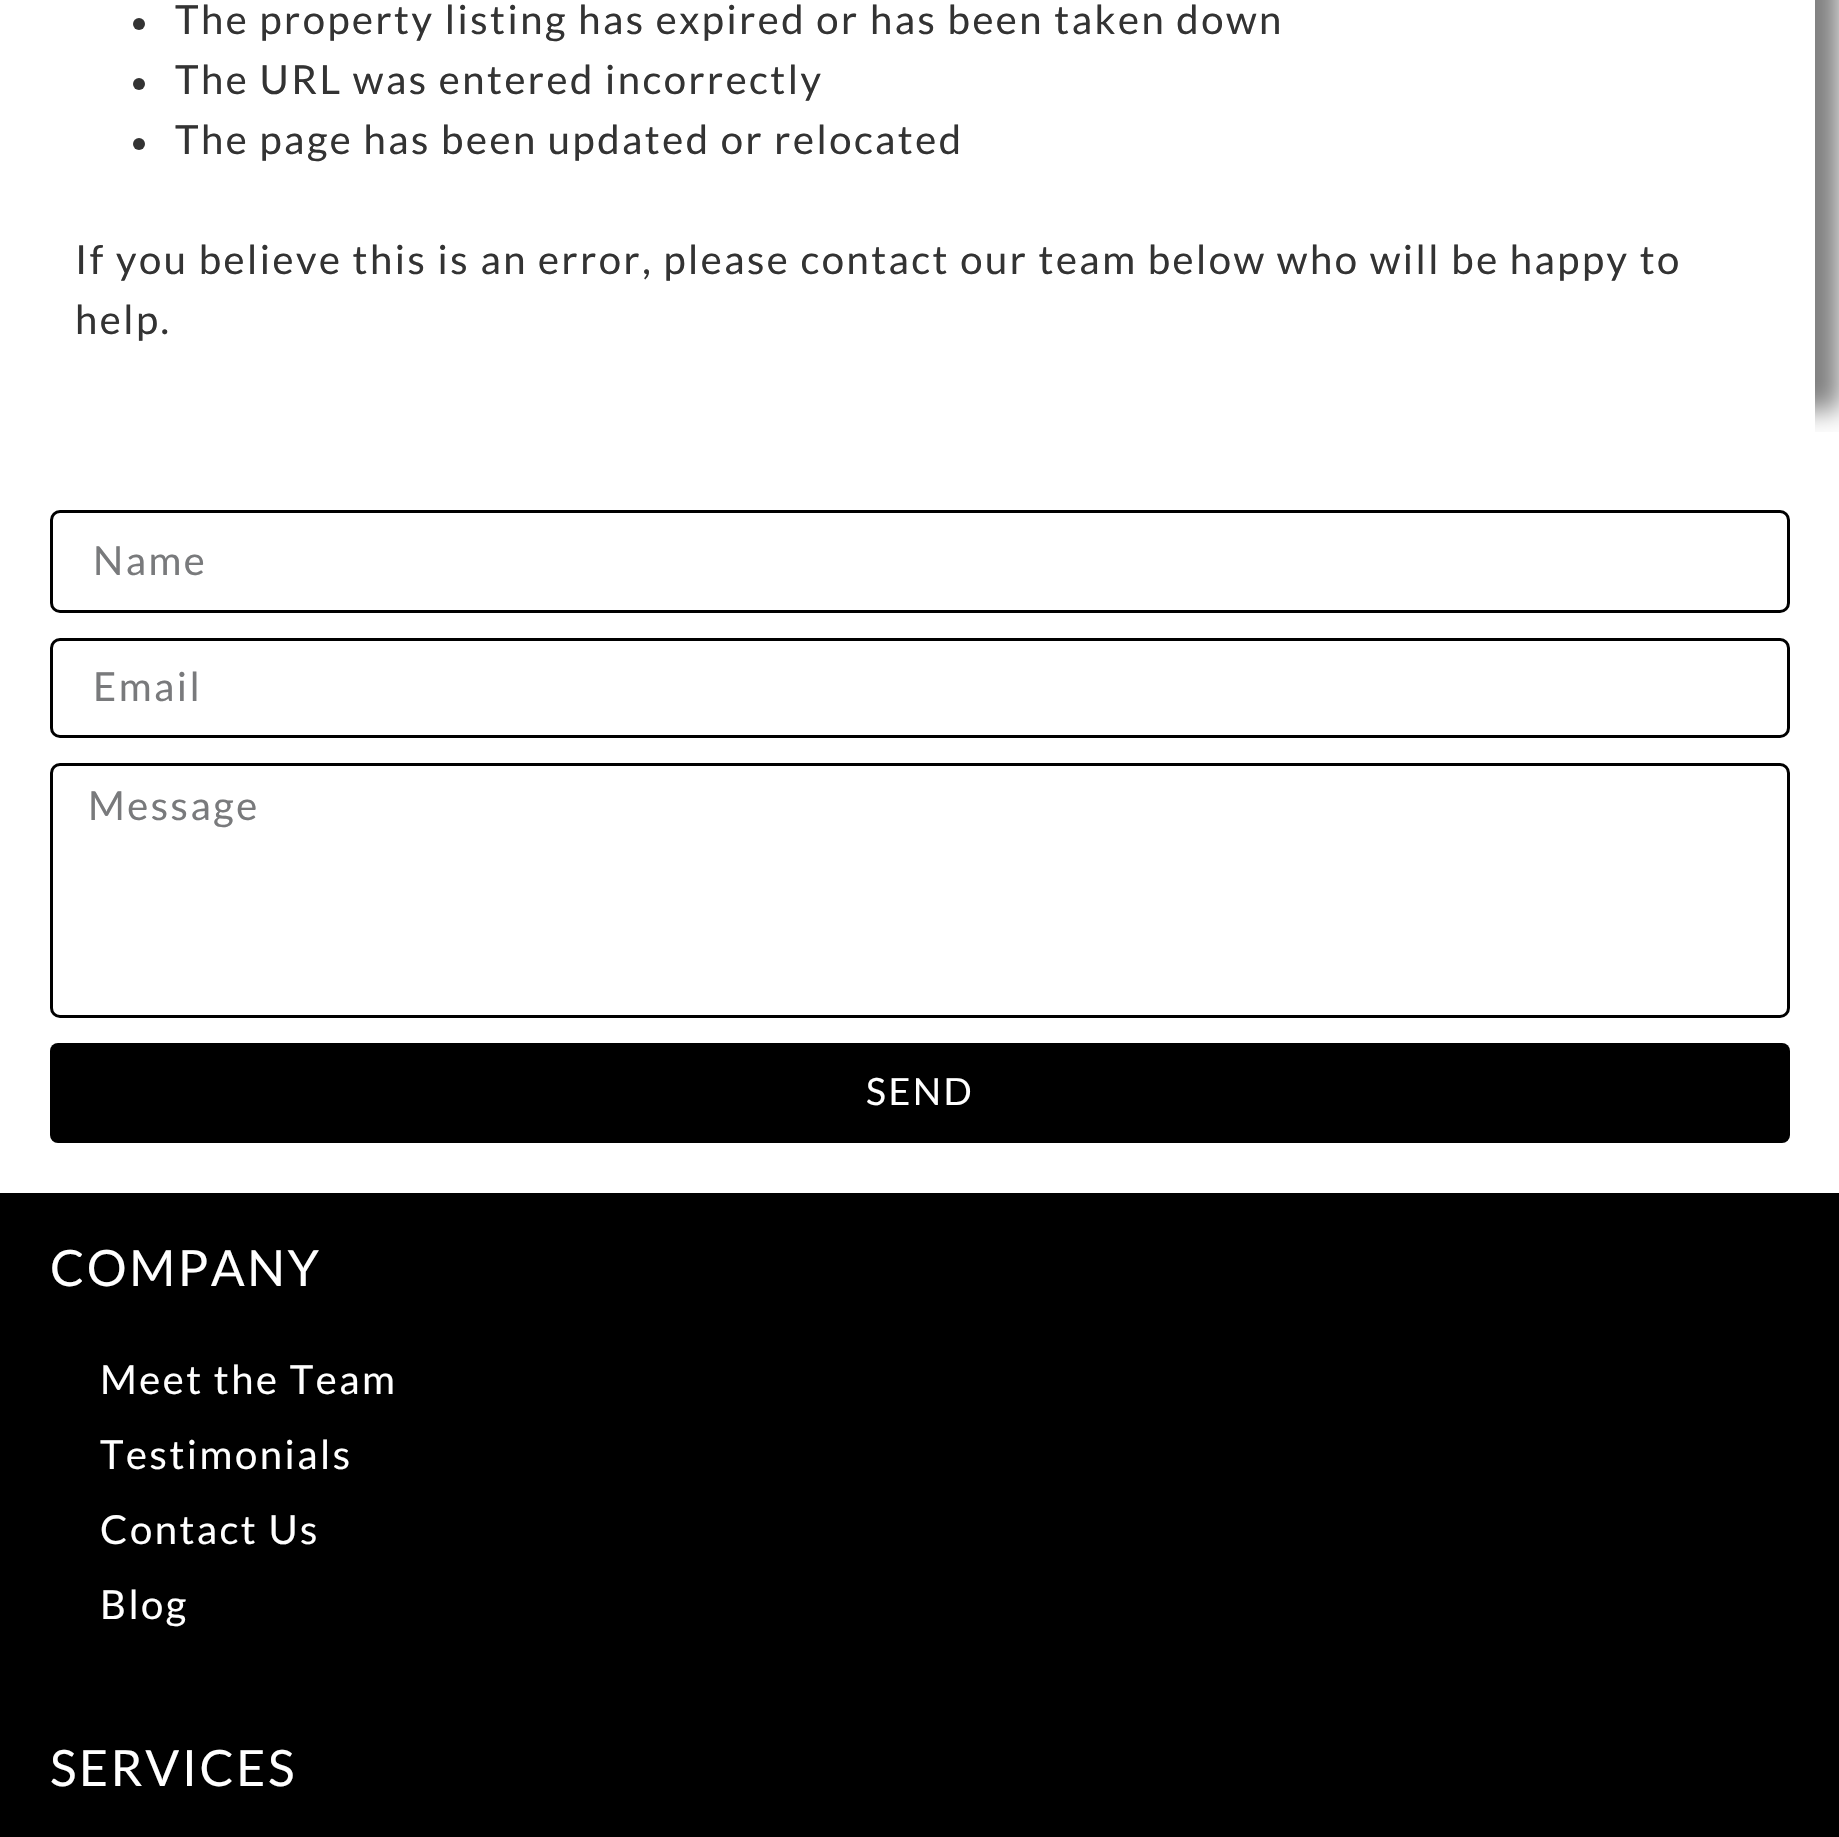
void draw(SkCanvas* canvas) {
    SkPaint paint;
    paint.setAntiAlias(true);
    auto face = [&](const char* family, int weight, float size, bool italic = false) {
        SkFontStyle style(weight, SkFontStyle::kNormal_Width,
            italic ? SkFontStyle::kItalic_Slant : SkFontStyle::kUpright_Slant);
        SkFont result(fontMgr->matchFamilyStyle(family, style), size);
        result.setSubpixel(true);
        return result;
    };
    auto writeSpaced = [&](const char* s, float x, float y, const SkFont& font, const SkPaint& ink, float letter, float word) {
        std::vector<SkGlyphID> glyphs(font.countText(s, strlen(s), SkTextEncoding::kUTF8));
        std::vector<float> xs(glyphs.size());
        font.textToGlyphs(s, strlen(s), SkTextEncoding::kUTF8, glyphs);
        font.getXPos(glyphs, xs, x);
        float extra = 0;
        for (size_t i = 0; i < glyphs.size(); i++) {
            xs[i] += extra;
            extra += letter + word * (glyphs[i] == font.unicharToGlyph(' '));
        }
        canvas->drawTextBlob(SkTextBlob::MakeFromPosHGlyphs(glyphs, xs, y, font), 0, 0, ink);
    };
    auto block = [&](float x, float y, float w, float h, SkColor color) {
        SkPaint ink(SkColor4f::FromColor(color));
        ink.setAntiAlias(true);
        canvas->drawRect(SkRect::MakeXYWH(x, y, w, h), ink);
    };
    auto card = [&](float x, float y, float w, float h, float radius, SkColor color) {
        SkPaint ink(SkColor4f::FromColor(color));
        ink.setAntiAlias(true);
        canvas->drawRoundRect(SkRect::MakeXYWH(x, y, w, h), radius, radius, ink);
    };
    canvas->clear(SK_ColorWHITE);
    canvas->save();
    canvas->clipRect(SkRect::MakeXYWH(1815, 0, 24, 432));
    paint.setColor(SkColorSetARGB(128, 0, 0, 0));
    paint.setMaskFilter(SkMaskFilter::MakeBlur(kNormal_SkBlurStyle, 12.5f));
    canvas->drawRect(SkRect::MakeXYWH(50, -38, 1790, 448), paint);
    paint.setMaskFilter(nullptr);
    canvas->restore();
    paint.setColor(SkColorSetRGB(51, 51, 51));
    canvas->drawCircle(139, 24, 6, paint);
    auto kFont1 = face("Lato", 400, 40);
    writeSpaced("The property listing has expired or has been taken down", 175, 34, kFont1, paint, 2.5f, 0);
    canvas->drawCircle(139, 84, 6, paint);
    writeSpaced("The URL was entered incorrectly", 175, 94, kFont1, paint, 2.5f, 0);
    canvas->drawCircle(139, 144, 6, paint);
    writeSpaced("The page has been updated or relocated", 175, 154, kFont1, paint, 2.5f, 0);
    writeSpaced("If you believe this is an error, please contact our team below who will be happy to", 75, 274, kFont1, paint, 2.5f, 0);
    writeSpaced("help.", 75, 334, kFont1, paint, 2.5f, 0);
    paint.setStyle(SkPaint::kStroke_Style);
    paint.setStrokeWidth(3);
    paint.setColor(SK_ColorBLACK);
    canvas->drawRoundRect(SkRect::MakeXYWH(51.5f, 511.5f, 1737, 100), 8.5f, 8.5f, paint);
    paint.setStyle(SkPaint::kFill_Style);
    paint.setColor(SkColorSetRGB(121, 122, 124));
    writeSpaced("Name", 93, 575, kFont1, paint, 2.5f, 0);
    paint.setStyle(SkPaint::kStroke_Style);
    paint.setColor(SK_ColorBLACK);
    canvas->drawRoundRect(SkRect::MakeXYWH(51.5f, 639.5f, 1737, 97), 8.5f, 8.5f, paint);
    paint.setStyle(SkPaint::kFill_Style);
    paint.setColor(SkColorSetRGB(121, 122, 124));
    writeSpaced("Email", 93, 701, kFont1, paint, 2.5f, 0);
    paint.setStyle(SkPaint::kStroke_Style);
    paint.setColor(SK_ColorBLACK);
    canvas->drawRoundRect(SkRect::MakeXYWH(51.5f, 764.5f, 1737, 252), 8.5f, 8.5f, paint);
    paint.setStyle(SkPaint::kFill_Style);
    paint.setColor(SkColorSetRGB(121, 122, 124));
    writeSpaced("Message", 88, 820, kFont1, paint, 2.5f, 0);
    card(50, 1043, 1740, 100, 8, SK_ColorBLACK);
    auto kFont2 = face("Lato", 400, 37.5f);
    paint.setColor(SK_ColorWHITE);
    writeSpaced("SEND", 866, 1105, kFont2, paint, 2.5f, 0);
    block(0, 1193, 1839, 644, SK_ColorBLACK);
    auto kFont3 = face("Lato", 400, 50);
    writeSpaced("COMPANY", 50, 1286, kFont3, paint, 2.5f, 0);
    writeSpaced("Meet the Team", 100, 1394, kFont1, paint, 2.5f, 0);
    writeSpaced("Testimonials", 100, 1469, kFont1, paint, 2.5f, 0);
    writeSpaced("Contact Us", 100, 1544, kFont1, paint, 2.5f, 0);
    writeSpaced("Blog", 100, 1619, kFont1, paint, 2.5f, 0);
    writeSpaced("SERVICES", 50, 1786, kFont3, paint, 2.5f, 0);
}
